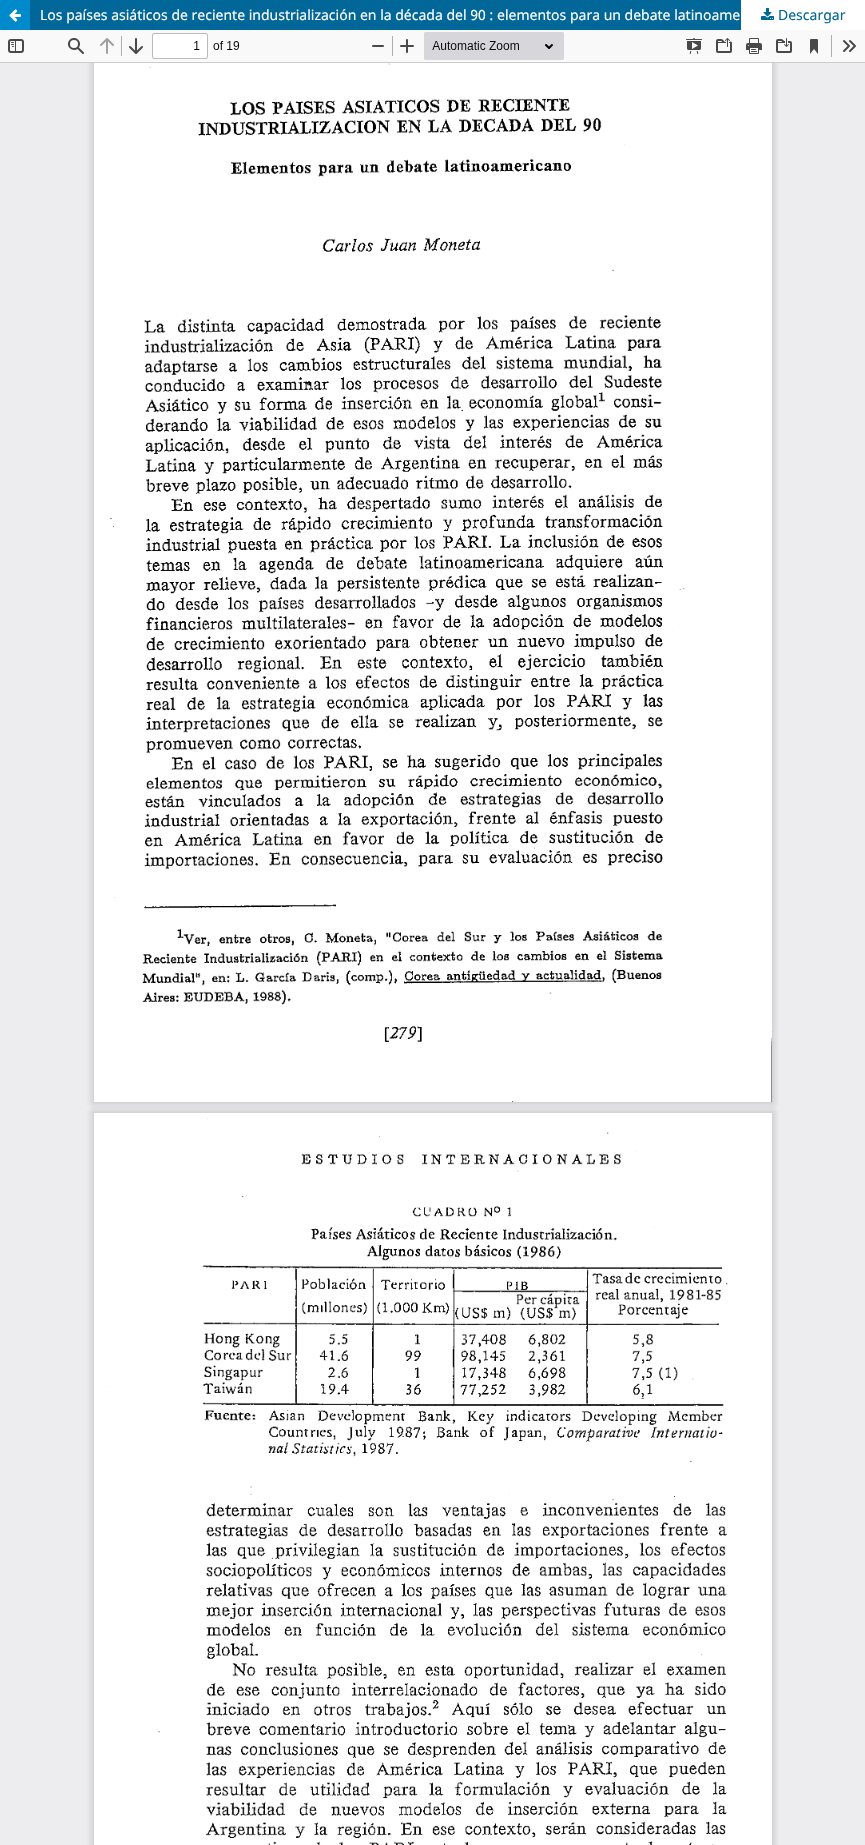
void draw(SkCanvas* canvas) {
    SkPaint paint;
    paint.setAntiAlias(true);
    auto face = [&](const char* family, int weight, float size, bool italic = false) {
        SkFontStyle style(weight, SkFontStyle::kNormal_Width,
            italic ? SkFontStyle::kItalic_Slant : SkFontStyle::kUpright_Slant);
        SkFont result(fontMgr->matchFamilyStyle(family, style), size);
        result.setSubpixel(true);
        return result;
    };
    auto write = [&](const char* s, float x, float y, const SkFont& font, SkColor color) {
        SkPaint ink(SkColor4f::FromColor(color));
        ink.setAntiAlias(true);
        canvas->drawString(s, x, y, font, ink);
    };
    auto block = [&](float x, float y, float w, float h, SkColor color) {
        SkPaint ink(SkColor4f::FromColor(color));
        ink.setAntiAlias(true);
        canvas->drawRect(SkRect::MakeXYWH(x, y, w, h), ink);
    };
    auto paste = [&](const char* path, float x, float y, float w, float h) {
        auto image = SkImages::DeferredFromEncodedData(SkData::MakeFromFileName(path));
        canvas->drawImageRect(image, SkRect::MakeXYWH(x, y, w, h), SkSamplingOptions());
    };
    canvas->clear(SK_ColorWHITE);
    block(30, 0, 711, 30, SkColorSetRGB(0, 103, 152));
    block(0, 0, 30, 30, SkColorSetRGB(0, 138, 203));
    paste("pic1.png", 9, 9, 12, 13);
    auto kFont1 = face("Noto Sans", 400, 14);
    write("Los países asiáticos de reciente industrialización en la década del 90 : elementos para un debate latinoame", 40, 20, kFont1, SK_ColorWHITE);
    paste("pic2.png", 761, 8, 13, 12);
    write("Descargar", 778, 20, kFont1, SkColorSetRGB(0, 103, 152));
    paste("pic3.png", 0, 30, 865, 1815);
}
